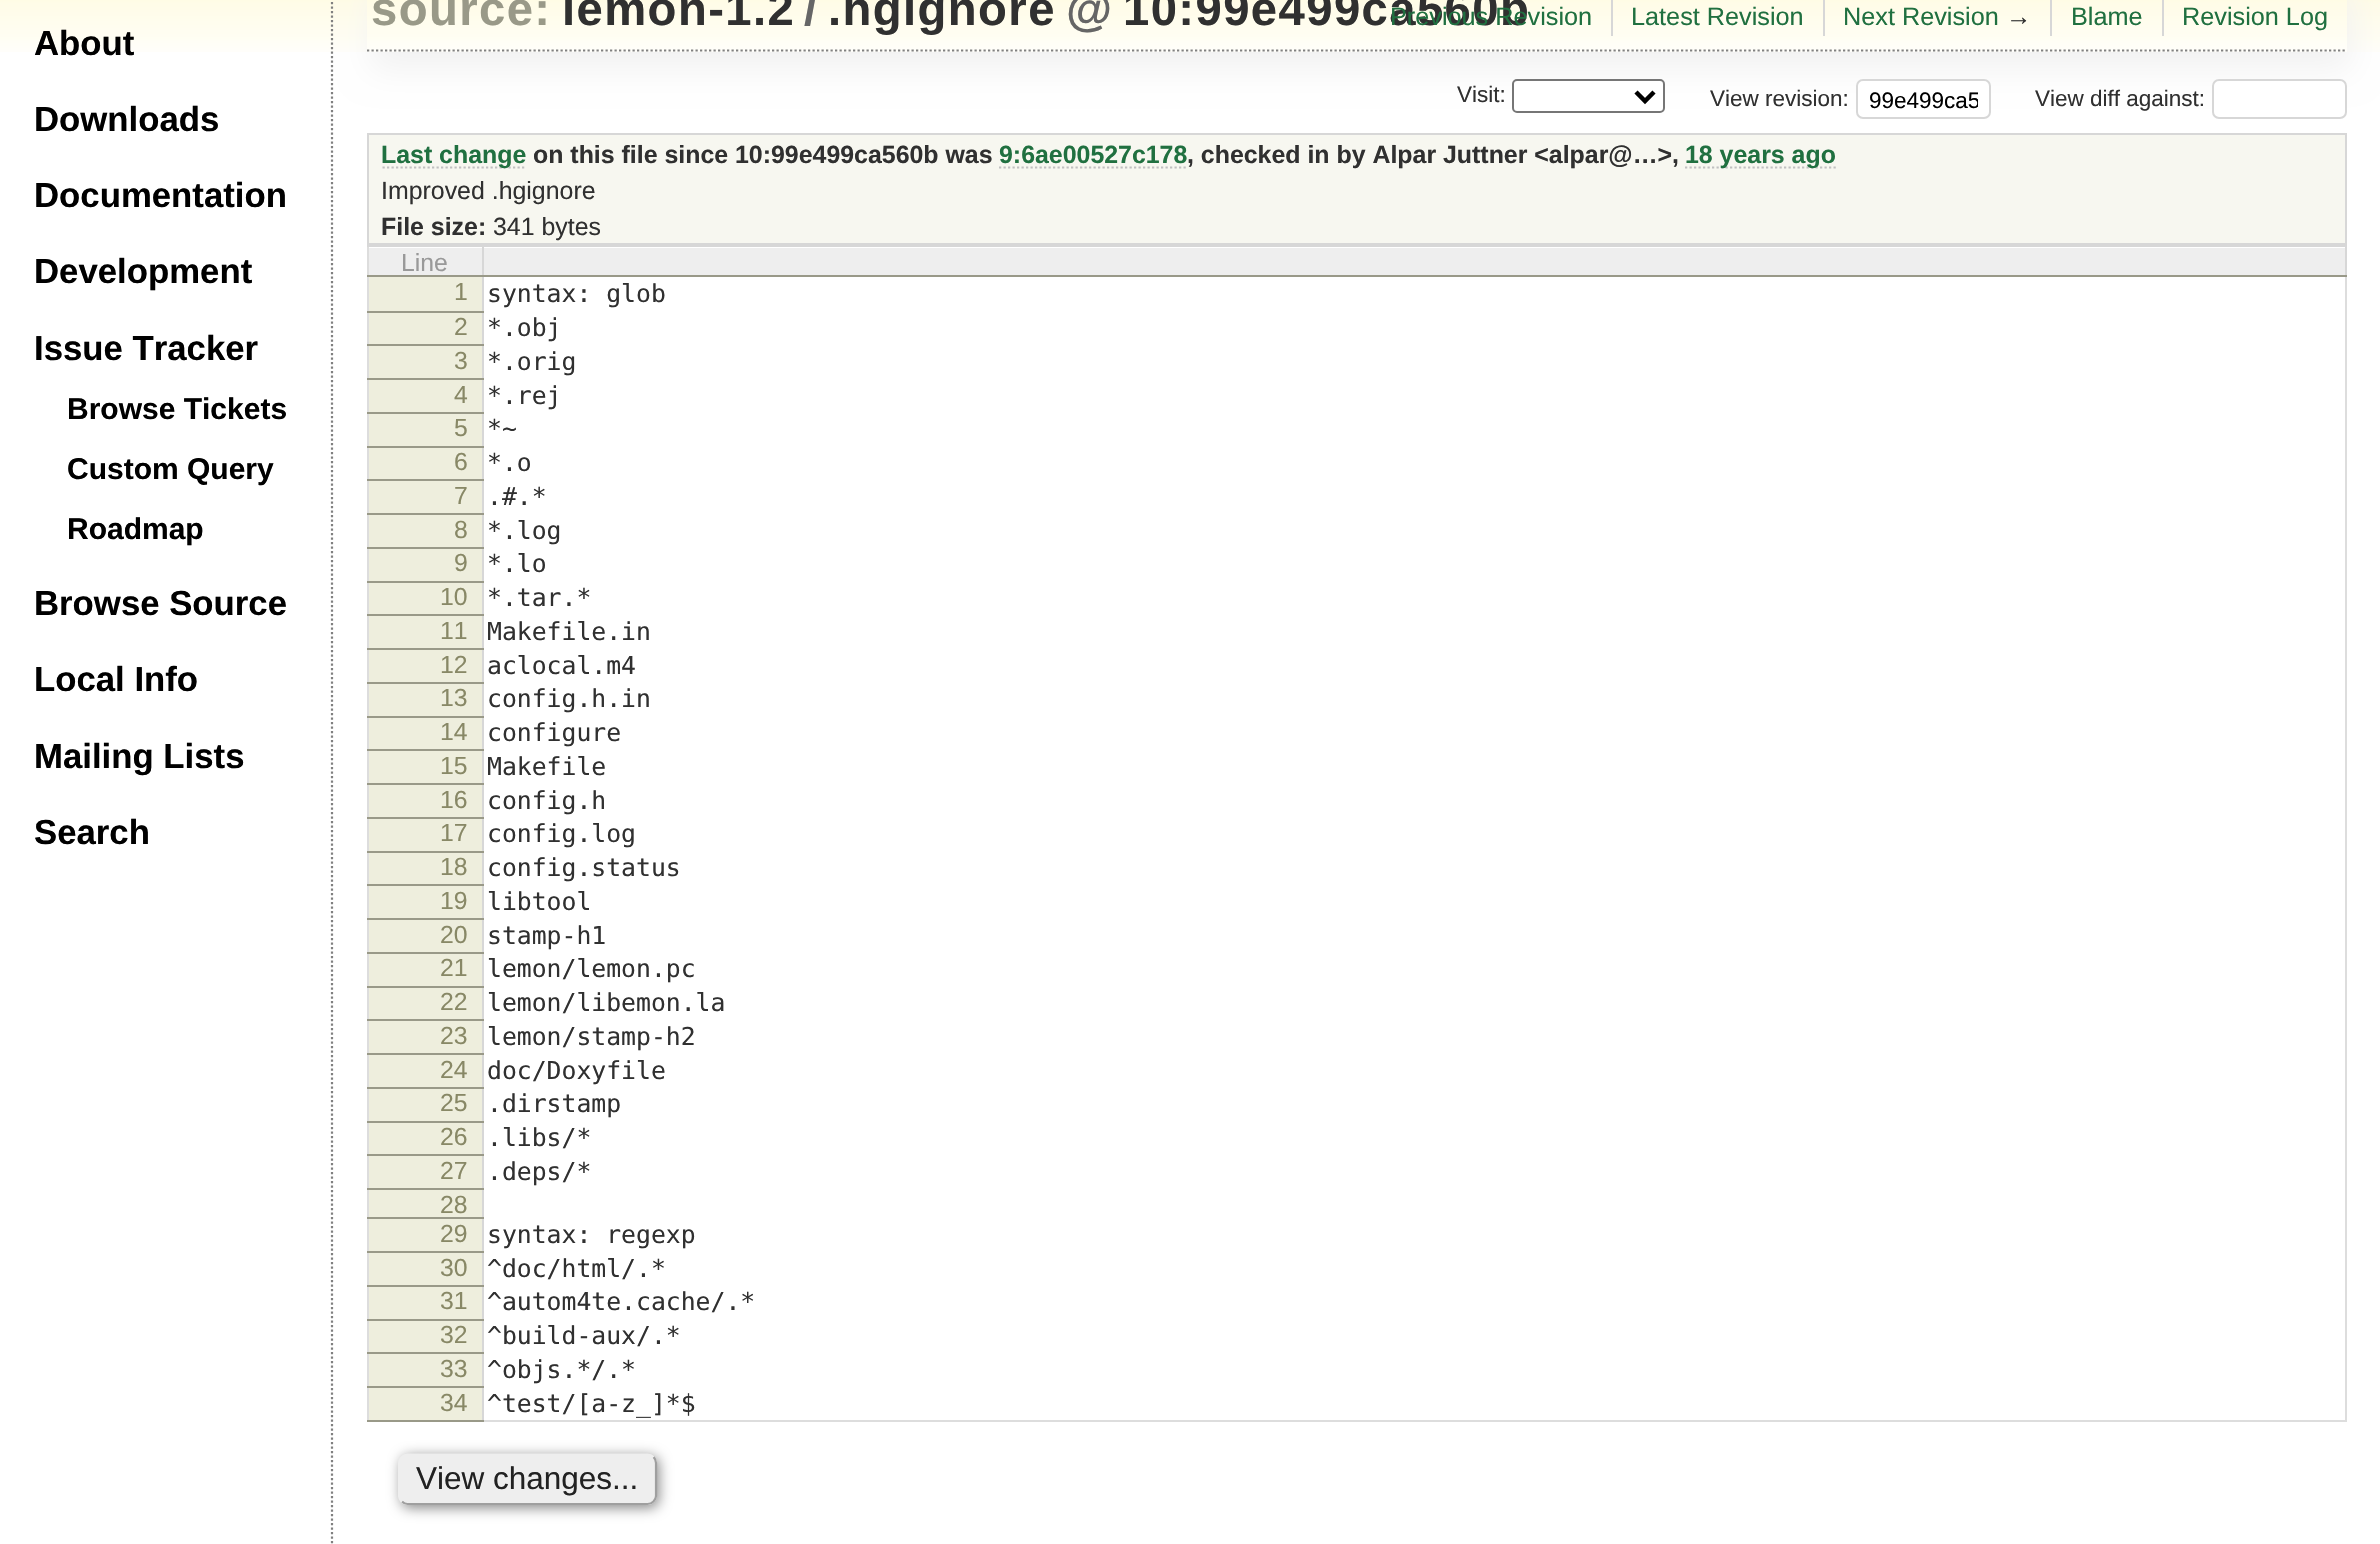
void draw(SkCanvas* canvas) {
    SkPaint paint;
    paint.setAntiAlias(true);
    auto face = [&](const char* family, int weight, float size, bool italic = false) {
        SkFontStyle style(weight, SkFontStyle::kNormal_Width,
            italic ? SkFontStyle::kItalic_Slant : SkFontStyle::kUpright_Slant);
        SkFont result(fontMgr->matchFamilyStyle(family, style), size);
        result.setSubpixel(true);
        return result;
    };
    auto write = [&](const char* s, float x, float y, const SkFont& font, SkColor color) {
        SkPaint ink(SkColor4f::FromColor(color));
        ink.setAntiAlias(true);
        canvas->drawString(s, x, y, font, ink);
    };
    auto writeSpaced = [&](const char* s, float x, float y, const SkFont& font, const SkPaint& ink, float letter, float word) {
        std::vector<SkGlyphID> glyphs(font.countText(s, strlen(s), SkTextEncoding::kUTF8));
        std::vector<float> xs(glyphs.size());
        font.textToGlyphs(s, strlen(s), SkTextEncoding::kUTF8, glyphs);
        font.getXPos(glyphs, xs, x);
        float extra = 0;
        for (size_t i = 0; i < glyphs.size(); i++) {
            xs[i] += extra;
            extra += letter + word * (glyphs[i] == font.unicharToGlyph(' '));
        }
        canvas->drawTextBlob(SkTextBlob::MakeFromPosHGlyphs(glyphs, xs, y, font), 0, 0, ink);
    };
    auto block = [&](float x, float y, float w, float h, SkColor color) {
        SkPaint ink(SkColor4f::FromColor(color));
        ink.setAntiAlias(true);
        canvas->drawRect(SkRect::MakeXYWH(x, y, w, h), ink);
    };
    auto card = [&](float x, float y, float w, float h, float radius, SkColor color) {
        SkPaint ink(SkColor4f::FromColor(color));
        ink.setAntiAlias(true);
        canvas->drawRoundRect(SkRect::MakeXYWH(x, y, w, h), radius, radius, ink);
    };
    auto paste = [&](const char* path, float x, float y, float w, float h) {
        auto image = SkImages::DeferredFromEncodedData(SkData::MakeFromFileName(path));
        canvas->drawImageRect(image, SkRect::MakeXYWH(x, y, w, h), SkSamplingOptions());
    };
    canvas->clear(SK_ColorWHITE);
    paste("pic1.png", 0, 0, 2380, 52);
    auto kFont1 = face("Liberation Sans", 700, 34.75f);
    write("About", 34, 55, kFont1, SK_ColorBLACK);
    write("Downloads", 34, 131, kFont1, SK_ColorBLACK);
    write("Documentation", 34, 207, kFont1, SK_ColorBLACK);
    write("Development", 34, 283, kFont1, SK_ColorBLACK);
    write("Issue Tracker", 34, 360, kFont1, SK_ColorBLACK);
    auto kFont2 = face("Liberation Sans", 700, 30);
    write("Browse Tickets", 67, 419, kFont2, SK_ColorBLACK);
    write("Custom Query", 67, 479, kFont2, SK_ColorBLACK);
    write("Roadmap", 67, 539, kFont2, SK_ColorBLACK);
    write("Browse Source", 34, 615, kFont1, SK_ColorBLACK);
    write("Local Info", 34, 691, kFont1, SK_ColorBLACK);
    write("Mailing Lists", 34, 768, kFont1, SK_ColorBLACK);
    write("Search", 34, 844, kFont1, SK_ColorBLACK);
    paint.setStyle(SkPaint::kStroke_Style);
    paint.setStrokeWidth(2.2f);
    paint.setColor(SkColorSetRGB(128, 128, 128));
    paint.setPathEffect(SkDashPathEffect::Make({{2.25f, 2.25f}}, 0));
    canvas->drawPath(SkPathBuilder().moveTo(332, -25).lineTo(332, 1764).detach(), paint);
    paint.setPathEffect(nullptr);
    canvas->save();
    canvas->clipPath(SkPathBuilder(SkPathFillType::kEvenOdd).moveTo(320, 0).lineTo(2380, 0).lineTo(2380, 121).lineTo(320, 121).close().moveTo(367, -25).lineTo(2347, -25).lineTo(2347, 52).lineTo(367, 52).close().detach(), true);
    paint.setStyle(SkPaint::kFill_Style);
    paint.setColor(SkColorSetRGB(242, 242, 242));
    paint.setMaskFilter(SkMaskFilter::MakeBlur(kNormal_SkBlurStyle, 16.5f));
    canvas->drawRect(SkRect::MakeXYWH(371, -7, 1980, 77), paint);
    paint.setMaskFilter(nullptr);
    canvas->restore();
    paint.setStyle(SkPaint::kStroke_Style);
    paint.setColor(SkColorSetRGB(128, 128, 128));
    paint.setPathEffect(SkDashPathEffect::Make({{2.25f, 2.25f}}, 0));
    canvas->drawPath(SkPathBuilder().moveTo(367, 50.5f).lineTo(2347, 50.5f).detach(), paint);
    paint.setPathEffect(nullptr);
    auto kFont3 = face("Liberation Sans", 700, 47.25f);
    paint.setStyle(SkPaint::kFill_Style);
    paint.setColor(SkColorSetRGB(153, 153, 136));
    writeSpaced("source:", 371, 25, kFont3, paint, 1.4f, 0);
    paint.setColor(SkColorSetRGB(48, 48, 48));
    writeSpaced("lemon-1.2", 562, 25, kFont3, paint, 1.4f, 0);
    paint.setColor(SkColorSetRGB(102, 102, 102));
    writeSpaced("/", 804, 25, kFont3, paint, 1.4f, 0);
    paint.setColor(SkColorSetRGB(48, 48, 48));
    writeSpaced(".hgignore", 828, 25, kFont3, paint, 1.4f, 0);
    paint.setColor(SkColorSetRGB(102, 102, 102));
    writeSpaced("@", 1066, 25, kFont3, paint, 1.4f, 0);
    paint.setColor(SkColorSetRGB(48, 48, 48));
    writeSpaced("10:99e499ca560b", 1123, 25, kFont3, paint, 1.4f, 0);
    auto kFont4 = face("Liberation Sans", 400, 22.5f);
    write("Visit:", 1457, 102, kFont4, SkColorSetRGB(48, 48, 48));
    paint.setColor(SK_ColorWHITE);
    canvas->drawRoundRect(SkRect::MakeXYWH(1513, 80, 151, 32), 4, 4, paint);
    paint.setStyle(SkPaint::kStroke_Style);
    paint.setStrokeWidth(2);
    paint.setColor(SkColorSetRGB(118, 118, 118));
    canvas->drawRoundRect(SkRect::MakeXYWH(1513, 80, 151, 32), 4, 4, paint);
    paint.setStrokeWidth(4.5f);
    paint.setColor(SK_ColorBLACK);
    canvas->drawPath(SkPathBuilder().moveTo(1636, 92).lineTo(1645, 101).lineTo(1654, 92).detach(), paint);
    write("View revision:", 1710, 106, kFont4, SkColorSetRGB(48, 48, 48));
    paint.setStyle(SkPaint::kFill_Style);
    paint.setColor(SK_ColorWHITE);
    canvas->drawRoundRect(SkRect::MakeXYWH(1857, 80, 133, 38), 6, 6, paint);
    paint.setStyle(SkPaint::kStroke_Style);
    paint.setStrokeWidth(2);
    paint.setColor(SkColorSetRGB(215, 215, 215));
    canvas->drawRoundRect(SkRect::MakeXYWH(1857, 80, 133, 38), 6, 6, paint);
    canvas->save();
    canvas->clipRect(SkRect::MakeXYWH(1870, 88, 108, 25));
    write("99e499ca5", 1869, 108, kFont4, SK_ColorBLACK);
    canvas->restore();
    write("View diff against:", 2035, 106, kFont4, SkColorSetRGB(48, 48, 48));
    paint.setStyle(SkPaint::kFill_Style);
    paint.setColor(SK_ColorWHITE);
    canvas->drawRoundRect(SkRect::MakeXYWH(2213, 80, 133, 38), 6, 6, paint);
    paint.setStyle(SkPaint::kStroke_Style);
    paint.setColor(SkColorSetRGB(215, 215, 215));
    canvas->drawRoundRect(SkRect::MakeXYWH(2213, 80, 133, 38), 6, 6, paint);
    block(369, 135, 1976, 108, SkColorSetRGB(247, 247, 240));
    block(367, 133, 1980, 2, SkColorSetRGB(215, 215, 215));
    block(2345, 133, 2, 112, SkColorSetRGB(215, 215, 215));
    block(367, 243, 1980, 2, SkColorSetRGB(215, 215, 215));
    block(367, 133, 2, 112, SkColorSetRGB(215, 215, 215));
    paint.setStrokeWidth(2.2f);
    paint.setColor(SkColorSetRGB(192, 192, 192));
    paint.setPathEffect(SkDashPathEffect::Make({{2.25f, 2.25f}}, 0));
    canvas->drawPath(SkPathBuilder().moveTo(382.5f, 167.5f).lineTo(526.5f, 167.5f).detach(), paint);
    paint.setPathEffect(nullptr);
    auto kFont5 = face("Liberation Sans", 700, 24.9f);
    write("Last change", 381, 163, kFont5, SkColorSetRGB(32, 112, 64));
    write("on this file since 10:99e499ca560b was", 533, 163, kFont5, SkColorSetRGB(48, 48, 48));
    write("9:6ae00527c178", 999, 163, kFont5, SkColorSetRGB(32, 112, 64));
    paint.setPathEffect(SkDashPathEffect::Make({{2.25f, 2.25f}}, 0));
    canvas->drawPath(SkPathBuilder().moveTo(999, 167.5f).lineTo(1188, 167.5f).detach(), paint);
    paint.setPathEffect(nullptr);
    write(", checked in by Alpar Juttner <alpar@…>,", 1187, 163, kFont5, SkColorSetRGB(48, 48, 48));
    paint.setPathEffect(SkDashPathEffect::Make({{2.25f, 2.25f}}, 0));
    canvas->drawPath(SkPathBuilder().moveTo(1685, 167.5f).lineTo(1836, 167.5f).detach(), paint);
    paint.setPathEffect(nullptr);
    write("18 years ago", 1685, 163, kFont5, SkColorSetRGB(32, 112, 64));
    auto kFont6 = face("Liberation Sans", 400, 24.9f);
    write("Improved .hgignore", 381, 199, kFont6, SkColorSetRGB(48, 48, 48));
    write("File size:", 381, 235, kFont5, SkColorSetRGB(48, 48, 48));
    write("341 bytes", 493, 235, kFont6, SkColorSetRGB(48, 48, 48));
    block(2345, 277, 2, 1145, SkColorSetRGB(221, 221, 221));
    block(484, 1420, 1863, 2, SkColorSetRGB(221, 221, 221));
    block(367, 245, 2, 1177, SkColorSetRGB(221, 221, 221));
    block(484, 248, 1861, 27, SkColorSetRGB(238, 238, 238));
    block(367, 245, 1980, 2, SkColorSetRGB(215, 215, 215));
    block(2345, 245, 2, 32, SkColorSetRGB(215, 215, 215));
    block(482, 275, 2, 1147, SkColorSetRGB(215, 215, 215));
    block(482, 275, 1865, 2, SkColorSetRGB(153, 153, 136));
    block(369, 248, 113, 27, SkColorSetRGB(238, 238, 238));
    block(482, 245, 2, 32, SkColorSetRGB(215, 215, 215));
    block(367, 275, 117, 2, SkColorSetRGB(153, 153, 136));
    auto kFont7 = face("Liberation Sans", 400, 24.75f);
    write("Line", 401, 271, kFont7, SkColorSetRGB(153, 153, 153));
    block(369, 277, 113, 34, SkColorSetRGB(238, 238, 221));
    block(367, 311, 117, 2, SkColorSetRGB(153, 153, 136));
    write("1", 454, 300, kFont7, SkColorSetRGB(136, 136, 102));
    auto kFont8 = face("DejaVu Sans Mono", 400, 24.75f);
    write("syntax: glob", 487, 302, kFont8, SkColorSetRGB(48, 48, 48));
    block(369, 313, 113, 31, SkColorSetRGB(238, 238, 221));
    block(367, 344, 117, 2, SkColorSetRGB(153, 153, 136));
    write("2", 454, 335, kFont7, SkColorSetRGB(136, 136, 102));
    write("*.obj", 487, 336, kFont8, SkColorSetRGB(48, 48, 48));
    block(369, 346, 113, 32, SkColorSetRGB(238, 238, 221));
    block(367, 378, 117, 2, SkColorSetRGB(153, 153, 136));
    write("3", 454, 369, kFont7, SkColorSetRGB(136, 136, 102));
    write("*.orig", 487, 370, kFont8, SkColorSetRGB(48, 48, 48));
    block(369, 380, 113, 32, SkColorSetRGB(238, 238, 221));
    block(367, 412, 117, 2, SkColorSetRGB(153, 153, 136));
    write("4", 454, 403, kFont7, SkColorSetRGB(136, 136, 102));
    write("*.rej", 487, 404, kFont8, SkColorSetRGB(48, 48, 48));
    block(369, 414, 113, 32, SkColorSetRGB(238, 238, 221));
    block(367, 446, 117, 2, SkColorSetRGB(153, 153, 136));
    write("5", 454, 436, kFont7, SkColorSetRGB(136, 136, 102));
    write("*~", 487, 437, kFont8, SkColorSetRGB(48, 48, 48));
    block(369, 448, 113, 31, SkColorSetRGB(238, 238, 221));
    block(367, 479, 117, 2, SkColorSetRGB(153, 153, 136));
    write("6", 454, 470, kFont7, SkColorSetRGB(136, 136, 102));
    write("*.o", 487, 471, kFont8, SkColorSetRGB(48, 48, 48));
    block(369, 481, 113, 32, SkColorSetRGB(238, 238, 221));
    block(367, 513, 117, 2, SkColorSetRGB(153, 153, 136));
    write("7", 454, 504, kFont7, SkColorSetRGB(136, 136, 102));
    write(".#.*", 487, 505, kFont8, SkColorSetRGB(48, 48, 48));
    block(369, 515, 113, 32, SkColorSetRGB(238, 238, 221));
    block(367, 547, 117, 2, SkColorSetRGB(153, 153, 136));
    write("8", 454, 538, kFont7, SkColorSetRGB(136, 136, 102));
    write("*.log", 487, 539, kFont8, SkColorSetRGB(48, 48, 48));
    block(369, 549, 113, 32, SkColorSetRGB(238, 238, 221));
    block(367, 581, 117, 2, SkColorSetRGB(153, 153, 136));
    write("9", 454, 571, kFont7, SkColorSetRGB(136, 136, 102));
    write("*.lo", 487, 572, kFont8, SkColorSetRGB(48, 48, 48));
    block(369, 583, 113, 31, SkColorSetRGB(238, 238, 221));
    block(367, 614, 117, 2, SkColorSetRGB(153, 153, 136));
    write("10", 440, 605, kFont7, SkColorSetRGB(136, 136, 102));
    write("*.tar.*", 487, 606, kFont8, SkColorSetRGB(48, 48, 48));
    block(369, 616, 113, 32, SkColorSetRGB(238, 238, 221));
    block(367, 648, 117, 2, SkColorSetRGB(153, 153, 136));
    write("11", 440, 639, kFont7, SkColorSetRGB(136, 136, 102));
    write("Makefile.in", 487, 640, kFont8, SkColorSetRGB(48, 48, 48));
    block(369, 650, 113, 32, SkColorSetRGB(238, 238, 221));
    block(367, 682, 117, 2, SkColorSetRGB(153, 153, 136));
    write("12", 440, 673, kFont7, SkColorSetRGB(136, 136, 102));
    write("aclocal.m4", 487, 674, kFont8, SkColorSetRGB(48, 48, 48));
    block(369, 684, 113, 32, SkColorSetRGB(238, 238, 221));
    block(367, 716, 117, 2, SkColorSetRGB(153, 153, 136));
    write("13", 440, 706, kFont7, SkColorSetRGB(136, 136, 102));
    write("config.h.in", 487, 707, kFont8, SkColorSetRGB(48, 48, 48));
    block(369, 718, 113, 31, SkColorSetRGB(238, 238, 221));
    block(367, 749, 117, 2, SkColorSetRGB(153, 153, 136));
    write("14", 440, 740, kFont7, SkColorSetRGB(136, 136, 102));
    write("configure", 487, 741, kFont8, SkColorSetRGB(48, 48, 48));
    block(369, 751, 113, 32, SkColorSetRGB(238, 238, 221));
    block(367, 783, 117, 2, SkColorSetRGB(153, 153, 136));
    write("15", 440, 774, kFont7, SkColorSetRGB(136, 136, 102));
    write("Makefile", 487, 775, kFont8, SkColorSetRGB(48, 48, 48));
    block(369, 785, 113, 32, SkColorSetRGB(238, 238, 221));
    block(367, 817, 117, 2, SkColorSetRGB(153, 153, 136));
    write("16", 440, 808, kFont7, SkColorSetRGB(136, 136, 102));
    write("config.h", 487, 809, kFont8, SkColorSetRGB(48, 48, 48));
    block(369, 819, 113, 32, SkColorSetRGB(238, 238, 221));
    block(367, 851, 117, 2, SkColorSetRGB(153, 153, 136));
    write("17", 440, 841, kFont7, SkColorSetRGB(136, 136, 102));
    write("config.log", 487, 842, kFont8, SkColorSetRGB(48, 48, 48));
    block(369, 853, 113, 31, SkColorSetRGB(238, 238, 221));
    block(367, 884, 117, 2, SkColorSetRGB(153, 153, 136));
    write("18", 440, 875, kFont7, SkColorSetRGB(136, 136, 102));
    write("config.status", 487, 876, kFont8, SkColorSetRGB(48, 48, 48));
    block(369, 886, 113, 32, SkColorSetRGB(238, 238, 221));
    block(367, 918, 117, 2, SkColorSetRGB(153, 153, 136));
    write("19", 440, 909, kFont7, SkColorSetRGB(136, 136, 102));
    write("libtool", 487, 910, kFont8, SkColorSetRGB(48, 48, 48));
    block(369, 920, 113, 32, SkColorSetRGB(238, 238, 221));
    block(367, 952, 117, 2, SkColorSetRGB(153, 153, 136));
    write("20", 440, 943, kFont7, SkColorSetRGB(136, 136, 102));
    write("stamp-h1", 487, 944, kFont8, SkColorSetRGB(48, 48, 48));
    block(369, 954, 113, 32, SkColorSetRGB(238, 238, 221));
    block(367, 986, 117, 2, SkColorSetRGB(153, 153, 136));
    write("21", 440, 976, kFont7, SkColorSetRGB(136, 136, 102));
    write("lemon/lemon.pc", 487, 977, kFont8, SkColorSetRGB(48, 48, 48));
    block(369, 988, 113, 31, SkColorSetRGB(238, 238, 221));
    block(367, 1019, 117, 2, SkColorSetRGB(153, 153, 136));
    write("22", 440, 1010, kFont7, SkColorSetRGB(136, 136, 102));
    write("lemon/libemon.la", 487, 1011, kFont8, SkColorSetRGB(48, 48, 48));
    block(369, 1021, 113, 32, SkColorSetRGB(238, 238, 221));
    block(367, 1053, 117, 2, SkColorSetRGB(153, 153, 136));
    write("23", 440, 1044, kFont7, SkColorSetRGB(136, 136, 102));
    write("lemon/stamp-h2", 487, 1045, kFont8, SkColorSetRGB(48, 48, 48));
    block(369, 1055, 113, 32, SkColorSetRGB(238, 238, 221));
    block(367, 1087, 117, 2, SkColorSetRGB(153, 153, 136));
    write("24", 440, 1078, kFont7, SkColorSetRGB(136, 136, 102));
    write("doc/Doxyfile", 487, 1079, kFont8, SkColorSetRGB(48, 48, 48));
    block(369, 1089, 113, 32, SkColorSetRGB(238, 238, 221));
    block(367, 1121, 117, 2, SkColorSetRGB(153, 153, 136));
    write("25", 440, 1111, kFont7, SkColorSetRGB(136, 136, 102));
    write(".dirstamp", 487, 1112, kFont8, SkColorSetRGB(48, 48, 48));
    block(369, 1123, 113, 31, SkColorSetRGB(238, 238, 221));
    block(367, 1154, 117, 2, SkColorSetRGB(153, 153, 136));
    write("26", 440, 1145, kFont7, SkColorSetRGB(136, 136, 102));
    write(".libs/*", 487, 1146, kFont8, SkColorSetRGB(48, 48, 48));
    block(369, 1156, 113, 32, SkColorSetRGB(238, 238, 221));
    block(367, 1188, 117, 2, SkColorSetRGB(153, 153, 136));
    write("27", 440, 1179, kFont7, SkColorSetRGB(136, 136, 102));
    write(".deps/*", 487, 1180, kFont8, SkColorSetRGB(48, 48, 48));
    block(369, 1190, 113, 27, SkColorSetRGB(238, 238, 221));
    block(367, 1217, 117, 2, SkColorSetRGB(153, 153, 136));
    write("28", 440, 1213, kFont7, SkColorSetRGB(136, 136, 102));
    block(369, 1219, 113, 32, SkColorSetRGB(238, 238, 221));
    block(367, 1251, 117, 2, SkColorSetRGB(153, 153, 136));
    write("29", 440, 1242, kFont7, SkColorSetRGB(136, 136, 102));
    write("syntax: regexp", 487, 1243, kFont8, SkColorSetRGB(48, 48, 48));
    block(369, 1253, 113, 32, SkColorSetRGB(238, 238, 221));
    block(367, 1285, 117, 2, SkColorSetRGB(153, 153, 136));
    write("30", 440, 1276, kFont7, SkColorSetRGB(136, 136, 102));
    write("^doc/html/.*", 487, 1277, kFont8, SkColorSetRGB(48, 48, 48));
    block(369, 1287, 113, 32, SkColorSetRGB(238, 238, 221));
    block(367, 1319, 117, 2, SkColorSetRGB(153, 153, 136));
    write("31", 440, 1309, kFont7, SkColorSetRGB(136, 136, 102));
    write("^autom4te.cache/.*", 487, 1310, kFont8, SkColorSetRGB(48, 48, 48));
    block(369, 1321, 113, 31, SkColorSetRGB(238, 238, 221));
    block(367, 1352, 117, 2, SkColorSetRGB(153, 153, 136));
    write("32", 440, 1343, kFont7, SkColorSetRGB(136, 136, 102));
    write("^build-aux/.*", 487, 1344, kFont8, SkColorSetRGB(48, 48, 48));
    block(369, 1354, 113, 32, SkColorSetRGB(238, 238, 221));
    block(367, 1386, 117, 2, SkColorSetRGB(153, 153, 136));
    write("33", 440, 1377, kFont7, SkColorSetRGB(136, 136, 102));
    write("^objs.*/.*", 487, 1378, kFont8, SkColorSetRGB(48, 48, 48));
    block(369, 1388, 113, 32, SkColorSetRGB(238, 238, 221));
    block(367, 1420, 117, 2, SkColorSetRGB(153, 153, 136));
    write("34", 440, 1411, kFont7, SkColorSetRGB(136, 136, 102));
    write("^test/[a-z_]*$", 487, 1412, kFont8, SkColorSetRGB(48, 48, 48));
    paint.setStyle(SkPaint::kFill_Style);
    paint.setColor(SkColorSetRGB(136, 136, 136));
    paint.setMaskFilter(SkMaskFilter::MakeBlur(kNormal_SkBlurStyle, 6.5f));
    canvas->drawRoundRect(SkRect::MakeXYWH(401, 1456, 258, 52), 9, 9, paint);
    paint.setMaskFilter(nullptr);
    card(398, 1454, 259, 51, 9, SkColorSetRGB(238, 238, 238));
    paint.setStyle(SkPaint::kStroke_Style);
    paint.setColor(SkColorSetRGB(159, 159, 159));
    canvas->drawPath(SkPathBuilder().moveTo(653.5f, 1457).cubicTo(655, 1458.5f, 656, 1460.5f, 656, 1463).lineTo(656, 1496).cubicTo(656, 1498, 655, 1500, 653.5f, 1501.5f).cubicTo(652, 1503, 650, 1504, 647.5f, 1504).lineTo(407.5f, 1504).cubicTo(405.5f, 1504, 403.5f, 1503, 402, 1501.5f).detach(), paint);
    paint.setColor(SkColorSetRGB(238, 238, 238));
    canvas->drawPath(SkPathBuilder().moveTo(402, 1501.5f).cubicTo(400.5f, 1500, 399.5f, 1498, 399.5f, 1496).lineTo(399.5f, 1463).cubicTo(399.5f, 1460.5f, 400.5f, 1458.5f, 402, 1457).cubicTo(403.5f, 1455.5f, 405.5f, 1454.5f, 407.5f, 1454.5f).lineTo(647.5f, 1454.5f).cubicTo(650, 1454.5f, 652, 1455.5f, 653.5f, 1457).detach(), paint);
    auto kFont9 = face("Liberation Sans", 400, 31.5f);
    write("View changes...", 416, 1489, kFont9, SkColorSetRGB(34, 34, 34));
    block(1611, 0, 2, 36, SkColorSetRGB(215, 215, 215));
    auto kFont10 = face("Liberation Sans", 400, 25.25f);
    write("Previous Revision", 1390, 25, kFont10, SkColorSetRGB(32, 112, 64));
    block(1823, 0, 2, 36, SkColorSetRGB(215, 215, 215));
    write("Latest Revision", 1631, 25, kFont10, SkColorSetRGB(32, 112, 64));
    block(2050, 0, 2, 36, SkColorSetRGB(215, 215, 215));
    write("Next Revision", 1843, 25, kFont10, SkColorSetRGB(32, 112, 64));
    write("→", 2006, 25, kFont10, SkColorSetRGB(48, 48, 48));
    block(2162, 0, 2, 36, SkColorSetRGB(215, 215, 215));
    write("Blame", 2071, 25, kFont10, SkColorSetRGB(32, 112, 64));
    write("Revision Log", 2182, 25, kFont10, SkColorSetRGB(32, 112, 64));
}
